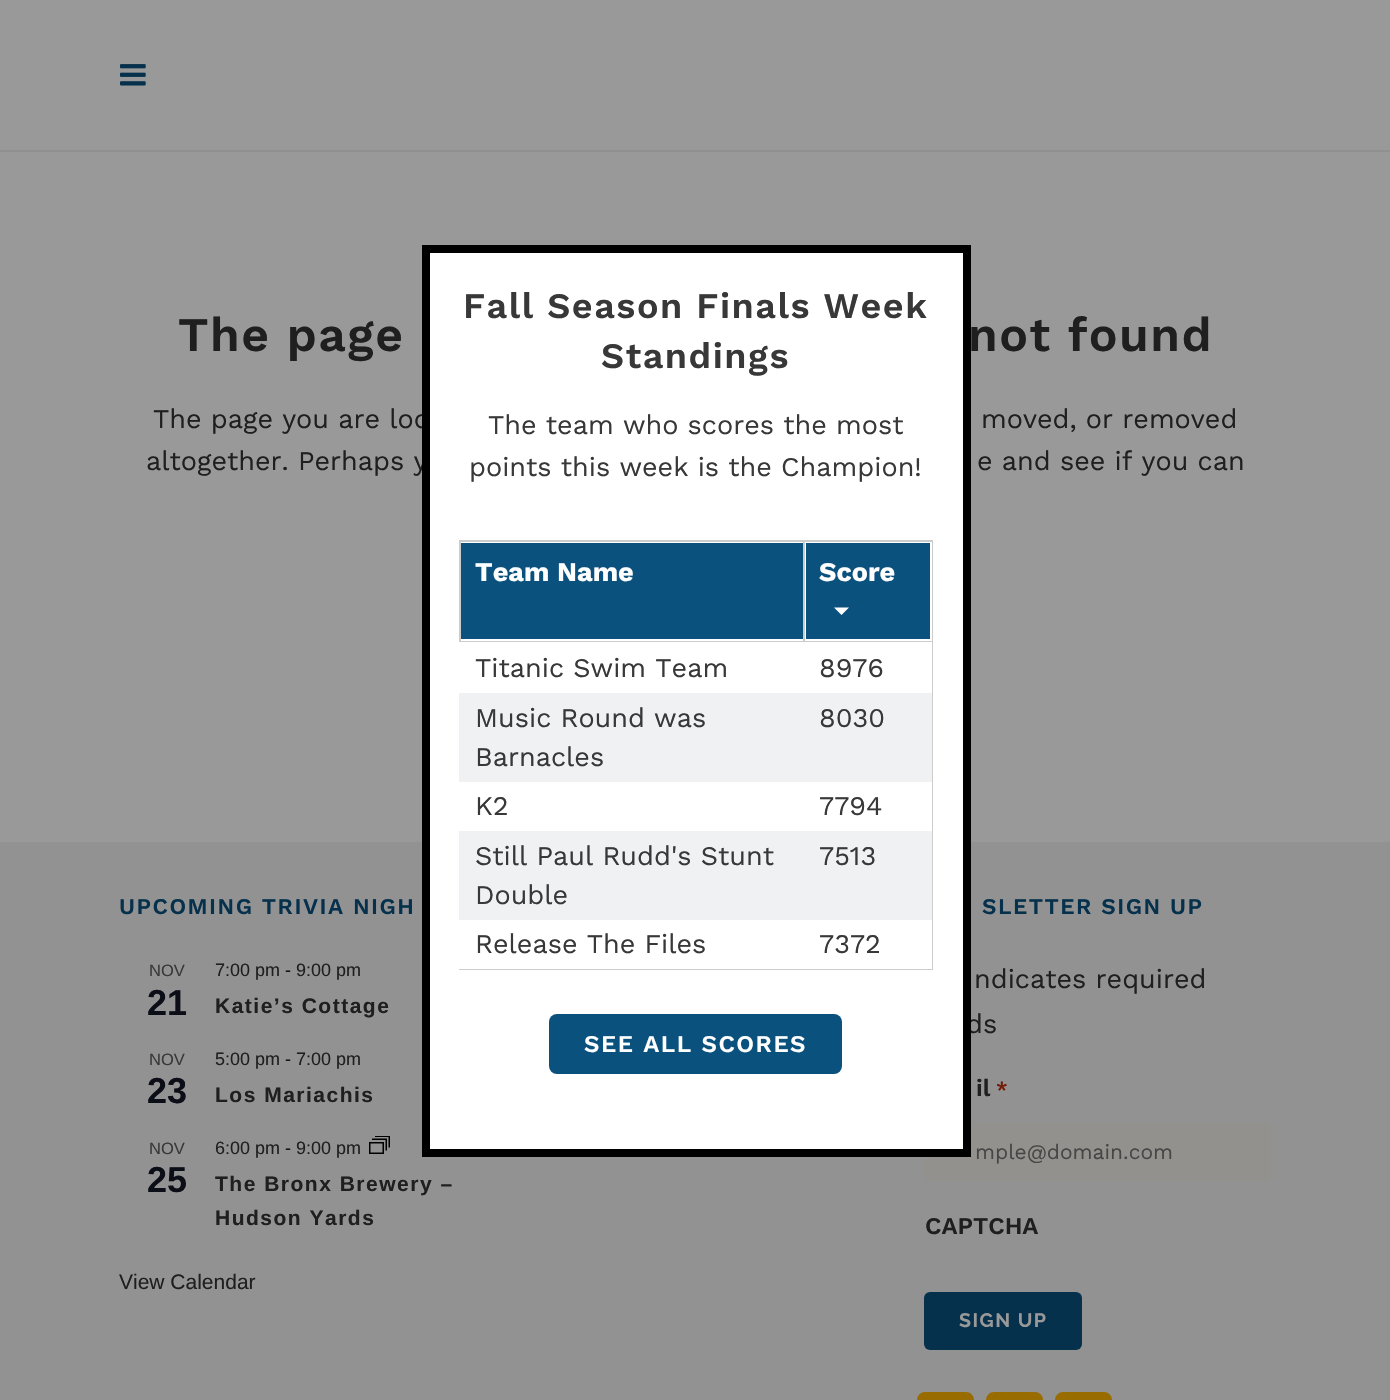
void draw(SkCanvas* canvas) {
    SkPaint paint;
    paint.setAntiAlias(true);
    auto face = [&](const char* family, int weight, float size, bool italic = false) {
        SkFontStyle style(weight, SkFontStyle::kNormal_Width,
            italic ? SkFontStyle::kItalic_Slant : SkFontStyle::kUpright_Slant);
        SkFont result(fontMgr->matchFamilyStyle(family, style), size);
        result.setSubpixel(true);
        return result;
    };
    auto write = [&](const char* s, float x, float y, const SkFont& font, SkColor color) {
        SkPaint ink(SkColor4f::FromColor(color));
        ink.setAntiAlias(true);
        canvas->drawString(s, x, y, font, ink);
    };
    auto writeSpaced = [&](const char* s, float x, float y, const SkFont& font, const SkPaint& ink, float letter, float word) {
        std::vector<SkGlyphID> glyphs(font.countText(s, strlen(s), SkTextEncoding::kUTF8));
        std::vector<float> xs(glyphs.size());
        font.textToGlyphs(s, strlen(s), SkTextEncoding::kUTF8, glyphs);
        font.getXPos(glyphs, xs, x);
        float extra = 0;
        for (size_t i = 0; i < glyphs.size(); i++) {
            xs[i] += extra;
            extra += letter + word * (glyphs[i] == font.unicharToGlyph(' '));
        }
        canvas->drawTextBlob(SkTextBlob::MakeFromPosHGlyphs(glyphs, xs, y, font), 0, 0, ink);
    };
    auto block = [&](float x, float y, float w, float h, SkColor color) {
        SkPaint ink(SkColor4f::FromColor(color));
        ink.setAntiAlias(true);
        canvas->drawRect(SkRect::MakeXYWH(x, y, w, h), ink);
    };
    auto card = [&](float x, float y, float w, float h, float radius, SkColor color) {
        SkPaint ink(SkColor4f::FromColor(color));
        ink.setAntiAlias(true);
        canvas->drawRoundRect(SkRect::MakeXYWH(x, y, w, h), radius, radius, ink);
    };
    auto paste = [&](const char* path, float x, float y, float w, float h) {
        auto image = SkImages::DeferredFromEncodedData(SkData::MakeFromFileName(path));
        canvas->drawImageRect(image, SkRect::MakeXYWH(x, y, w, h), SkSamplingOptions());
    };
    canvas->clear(SkColorSetRGB(153, 153, 153));
    auto kFont1 = face("Work Sans", 400, 27);
    write("The page you are loo", 153, 428, kFont1, SkColorSetRGB(31, 31, 31));
    write("altogether. Perhaps y", 146, 470, kFont1, SkColorSetRGB(31, 31, 31));
    block(0, 842, 1390, 558, SkColorSetRGB(146, 146, 146));
    write("ds", 966, 1033, kFont1, SkColorSetRGB(31, 31, 31));
    card(924, 1122, 347, 60, 8, SkColorSetRGB(146, 145, 141));
    paint.setColor(SK_ColorWHITE);
    canvas->drawRect(SkRect::MakeXYWH(426, 249, 541, 904), paint);
    paint.setStyle(SkPaint::kStroke_Style);
    paint.setStrokeWidth(8);
    paint.setColor(SK_ColorBLACK);
    canvas->drawRect(SkRect::MakeXYWH(426, 249, 541, 904), paint);
    auto kFont2 = face("Work Sans", 600, 36);
    paint.setStyle(SkPaint::kFill_Style);
    paint.setColor(SkColorSetRGB(56, 56, 56));
    writeSpaced("Fall Season Finals Week", 463, 318, kFont2, paint, 1.5f, 0);
    writeSpaced("Standings", 601, 368, kFont2, paint, 1.5f, 0);
    write("The team who scores the most", 488, 434, kFont1, SkColorSetRGB(56, 56, 56));
    write("points this week is the Champion!", 469, 476, kFont1, SkColorSetRGB(56, 56, 56));
    block(803, 540, 130, 2, SkColorSetRGB(204, 204, 204));
    block(803, 540, 2, 104, SkColorSetRGB(204, 204, 204));
    block(459, 540, 345, 2, SkColorSetRGB(204, 204, 204));
    block(459, 540, 2, 104, SkColorSetRGB(204, 204, 204));
    block(932, 642, 1, 327, SkColorSetRGB(204, 204, 204));
    block(932, 540, 1, 104, SkColorSetRGB(204, 204, 204));
    block(803, 641, 130, 3, SkColorSetRGB(204, 204, 204));
    block(459, 641, 347, 1, SkColorSetRGB(204, 204, 204));
    block(461, 543, 342, 96, SkColorSetRGB(10, 81, 126));
    auto kFont3 = face("Work Sans", 700, 27);
    write("Team Name", 475, 581, kFont3, SK_ColorWHITE);
    block(806, 543, 124, 96, SkColorSetRGB(10, 81, 126));
    write("Score", 819, 581, kFont3, SK_ColorWHITE);
    paint.setColor(SK_ColorWHITE);
    canvas->drawPath(SkPathBuilder().moveTo(834, 607.5f).lineTo(849, 607.5f).lineTo(841.5f, 615).close().detach(), paint);
    block(459, 642, 473, 2, SK_ColorWHITE);
    write("Titanic Swim Team", 475, 677, kFont1, SkColorSetRGB(56, 56, 56));
    write("8976", 819, 677, kFont1, SkColorSetRGB(56, 56, 56));
    block(459, 693, 473, 89, SkColorSetRGB(240, 241, 242));
    write("Music Round was", 475, 727, kFont1, SkColorSetRGB(56, 56, 56));
    write("Barnacles", 475, 766, kFont1, SkColorSetRGB(56, 56, 56));
    write("8030", 819, 727, kFont1, SkColorSetRGB(56, 56, 56));
    write("K2", 475, 815, kFont1, SkColorSetRGB(56, 56, 56));
    write("7794", 819, 815, kFont1, SkColorSetRGB(56, 56, 56));
    block(459, 831, 473, 89, SkColorSetRGB(240, 241, 242));
    write("Still Paul Rudd's Stunt", 475, 865, kFont1, SkColorSetRGB(56, 56, 56));
    write("Double", 475, 904, kFont1, SkColorSetRGB(56, 56, 56));
    write("7513", 819, 865, kFont1, SkColorSetRGB(56, 56, 56));
    block(803, 968, 130, 2, SkColorSetRGB(204, 204, 204));
    block(459, 969, 345, 1, SkColorSetRGB(204, 204, 204));
    block(803, 968, 129, 1, SK_ColorWHITE);
    write("Release The Files", 475, 953, kFont1, SkColorSetRGB(56, 56, 56));
    write("7372", 819, 953, kFont1, SkColorSetRGB(56, 56, 56));
    card(549, 1014, 293, 60, 8, SkColorSetRGB(10, 81, 126));
    auto kFont4 = face("Work Sans", 600, 24);
    writeSpaced("SEE ALL SCORES", 584, 1052, kFont4, paint, 1.5f, 0);
    block(0, 150, 1390, 2, SkColorSetRGB(144, 144, 144));
    paste("pic1.png", 120, 64, 26, 22);
    auto kFont5 = face("Work Sans", 600, 48);
    paint.setColor(SkColorSetRGB(31, 31, 31));
    writeSpaced("The page", 178, 351, kFont5, paint, 1.5f, 0);
    writeSpaced("not found", 968, 351, kFont5, paint, 1.5f, 0);
    write("moved, or removed", 981, 428, kFont1, SkColorSetRGB(31, 31, 31));
    write("e and see if you can", 977, 470, kFont1, SkColorSetRGB(31, 31, 31));
    auto kFont6 = face("Work Sans", 600, 22.5f);
    paint.setColor(SkColorSetRGB(6, 49, 76));
    writeSpaced("UPCOMING TRIVIA NIGH", 119, 914, kFont6, paint, 1.5f, 0);
    auto kFont7 = face("Liberation Sans", 400, 16.5f);
    write("NOV", 149, 976, kFont7, SkColorSetRGB(56, 56, 56));
    auto kFont8 = face("Liberation Sans", 700, 36);
    write("21", 147, 1015, kFont8, SkColorSetRGB(12, 14, 23));
    auto kFont9 = face("Liberation Sans", 400, 18);
    write("7:00 pm", 215, 976, kFont9, SkColorSetRGB(31, 31, 31));
    write("-", 285, 976, kFont9, SkColorSetRGB(12, 14, 23));
    write("9:00 pm", 296, 976, kFont9, SkColorSetRGB(31, 31, 31));
    auto kFont10 = face("Liberation Sans", 700, 21);
    paint.setColor(SkColorSetRGB(31, 31, 31));
    writeSpaced("Katie’s Cottage", 215, 1013, kFont10, paint, 1.5f, 0);
    write("NOV", 149, 1065, kFont7, SkColorSetRGB(56, 56, 56));
    write("23", 147, 1103, kFont8, SkColorSetRGB(12, 14, 23));
    write("5:00 pm", 215, 1065, kFont9, SkColorSetRGB(31, 31, 31));
    write("-", 285, 1065, kFont9, SkColorSetRGB(12, 14, 23));
    write("7:00 pm", 296, 1065, kFont9, SkColorSetRGB(31, 31, 31));
    writeSpaced("Los Mariachis", 215, 1102, kFont10, paint, 1.5f, 0);
    write("NOV", 149, 1154, kFont7, SkColorSetRGB(56, 56, 56));
    write("25", 147, 1192, kFont8, SkColorSetRGB(12, 14, 23));
    write("6:00 pm", 215, 1154, kFont9, SkColorSetRGB(31, 31, 31));
    write("-", 285, 1154, kFont9, SkColorSetRGB(12, 14, 23));
    write("9:00 pm", 296, 1154, kFont9, SkColorSetRGB(31, 31, 31));
    paste("pic2.png", 369, 1136, 21, 18);
    writeSpaced("The Bronx Brewery –", 215, 1191, kFont10, paint, 1.5f, 0);
    writeSpaced("Hudson Yards", 215, 1225, kFont10, paint, 1.5f, 0);
    auto kFont11 = face("Liberation Sans", 400, 21);
    write("View Calendar", 119, 1289, kFont11, SkColorSetRGB(31, 31, 31));
    paint.setColor(SkColorSetRGB(6, 49, 76));
    writeSpaced("SLETTER SIGN UP", 982, 914, kFont6, paint, 1.5f, 0);
    write("ndicates required", 974, 988, kFont1, SkColorSetRGB(31, 31, 31));
    write("il", 976, 1096, kFont4, SkColorSetRGB(31, 31, 31));
    auto kFont12 = face("Work Sans", 600, 20);
    write("*", 996, 1096, kFont12, SkColorSetRGB(115, 26, 6));
    auto kFont13 = face("Work Sans", 400, 21);
    write("mple@domain.com", 975, 1159, kFont13, SkColorSetRGB(70, 70, 70));
    write("CAPTCHA", 925, 1234, kFont4, SkColorSetRGB(31, 31, 31));
    card(924, 1292, 158, 58, 6, SkColorSetRGB(6, 49, 76));
    auto kFont14 = face("Raleway", 700, 19.5f);
    paint.setColor(SkColorSetRGB(153, 153, 153));
    writeSpaced("SIGN UP", 959, 1327, kFont14, paint, 1.5f, 0);
    paint.setColor(SkColorSetRGB(153, 108, 0));
    canvas->drawRoundRect(SkRect::MakeXYWH(918, 1393, 55, 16), 7, 7, paint);
    paint.setStyle(SkPaint::kStroke_Style);
    paint.setStrokeWidth(2);
    canvas->drawRoundRect(SkRect::MakeXYWH(918, 1393, 55, 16), 7, 7, paint);
    paint.setStyle(SkPaint::kFill_Style);
    canvas->drawRoundRect(SkRect::MakeXYWH(987, 1393, 55, 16), 7, 7, paint);
    paint.setStyle(SkPaint::kStroke_Style);
    canvas->drawRoundRect(SkRect::MakeXYWH(987, 1393, 55, 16), 7, 7, paint);
    paint.setStyle(SkPaint::kFill_Style);
    canvas->drawRoundRect(SkRect::MakeXYWH(1056, 1393, 55, 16), 7, 7, paint);
    paint.setStyle(SkPaint::kStroke_Style);
    canvas->drawRoundRect(SkRect::MakeXYWH(1056, 1393, 55, 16), 7, 7, paint);
}
